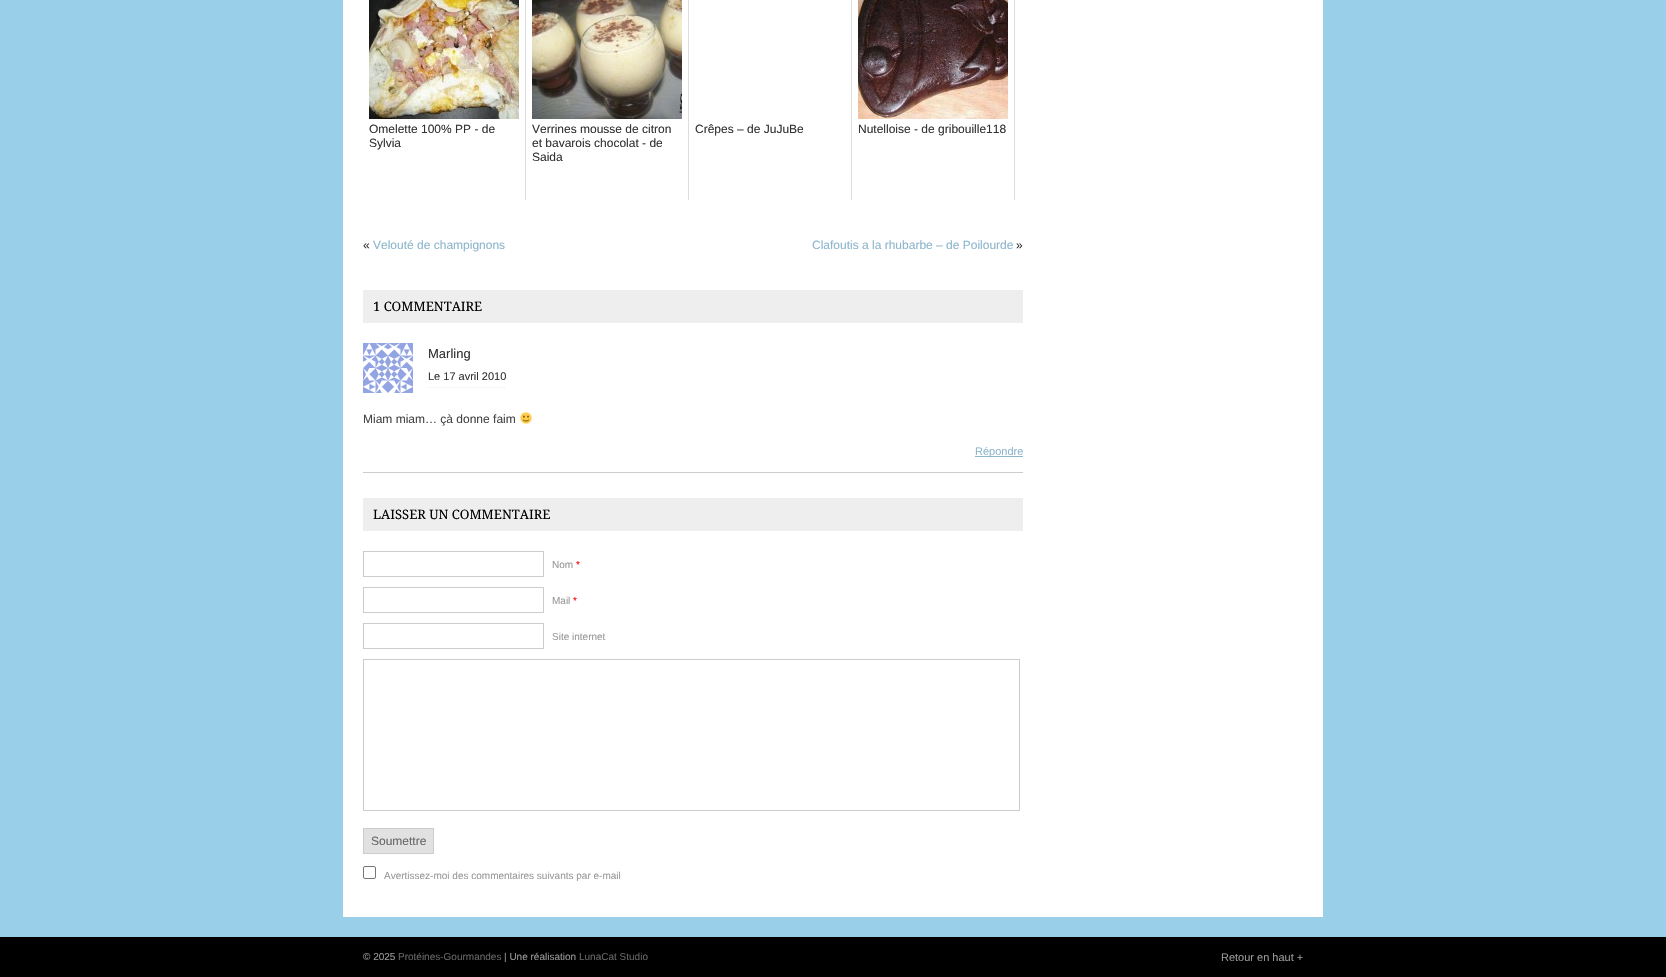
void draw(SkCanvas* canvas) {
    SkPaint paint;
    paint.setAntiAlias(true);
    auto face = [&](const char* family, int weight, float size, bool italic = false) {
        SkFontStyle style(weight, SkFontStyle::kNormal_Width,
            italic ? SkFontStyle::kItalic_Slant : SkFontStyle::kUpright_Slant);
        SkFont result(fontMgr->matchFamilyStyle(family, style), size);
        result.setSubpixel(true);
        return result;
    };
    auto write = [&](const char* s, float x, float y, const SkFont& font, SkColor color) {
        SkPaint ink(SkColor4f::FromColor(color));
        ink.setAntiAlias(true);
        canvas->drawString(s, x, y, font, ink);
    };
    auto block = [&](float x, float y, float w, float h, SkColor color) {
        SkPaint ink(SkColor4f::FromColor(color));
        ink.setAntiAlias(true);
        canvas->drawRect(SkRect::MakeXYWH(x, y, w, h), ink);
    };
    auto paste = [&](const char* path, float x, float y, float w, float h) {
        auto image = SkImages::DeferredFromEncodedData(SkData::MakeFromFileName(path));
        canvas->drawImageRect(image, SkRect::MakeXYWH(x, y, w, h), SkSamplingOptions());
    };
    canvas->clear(SkColorSetRGB(153, 207, 233));
    block(343, 0, 980, 917, SK_ColorWHITE);
    block(525, 0, 1, 200, SkColorSetRGB(221, 221, 221));
    paste("pic1.png", 369, 0, 150, 119);
    auto kFont1 = face("Liberation Sans", 400, 12);
    write("Omelette 100% PP - de", 369, 133, kFont1, SkColorSetRGB(51, 51, 51));
    write("Sylvia", 369, 147, kFont1, SkColorSetRGB(51, 51, 51));
    block(688, 0, 1, 200, SkColorSetRGB(221, 221, 221));
    paste("pic2.png", 532, 0, 150, 119);
    write("Verrines mousse de citron", 532, 133, kFont1, SkColorSetRGB(51, 51, 51));
    write("et bavarois chocolat - de", 532, 147, kFont1, SkColorSetRGB(51, 51, 51));
    write("Saida", 532, 161, kFont1, SkColorSetRGB(51, 51, 51));
    block(851, 0, 1, 200, SkColorSetRGB(221, 221, 221));
    write("Crêpes – de JuJuBe", 695, 133, kFont1, SkColorSetRGB(51, 51, 51));
    block(1014, 0, 1, 200, SkColorSetRGB(221, 221, 221));
    paste("pic3.png", 858, 0, 150, 119);
    write("Nutelloise - de gribouille118", 858, 133, kFont1, SkColorSetRGB(51, 51, 51));
    write("«", 363, 249, kFont1, SkColorSetRGB(51, 51, 51));
    write("Velouté de champignons", 373, 249, kFont1, SkColorSetRGB(141, 182, 205));
    write("Clafoutis a la rhubarbe – de Poilourde", 812, 249, kFont1, SkColorSetRGB(141, 182, 205));
    write("»", 1016, 249, kFont1, SkColorSetRGB(51, 51, 51));
    block(363, 290, 660, 33, SkColorSetRGB(238, 238, 238));
    auto kFont2 = face("Droid Serif", 400, 13);
    write("1 COMMENTAIRE", 373, 311, kFont2, SK_ColorBLACK);
    block(363, 472, 660, 1, SkColorSetRGB(204, 204, 204));
    paste("pic4.png", 363, 343, 50, 50);
    auto kFont3 = face("Liberation Sans", 400, 13);
    write("Marling", 428, 358, kFont3, SkColorSetRGB(51, 51, 51));
    paint.setStyle(SkPaint::kStroke_Style);
    paint.setStrokeWidth(1);
    paint.setColor(SkColorSetRGB(238, 238, 238));
    paint.setPathEffect(SkDashPathEffect::Make({{1, 1}}, 0));
    canvas->drawPath(SkPathBuilder().moveTo(428, 387.5f).lineTo(506, 387.5f).detach(), paint);
    paint.setPathEffect(nullptr);
    auto kFont4 = face("Liberation Sans", 400, 11);
    write("Le 17 avril 2010", 428, 380, kFont4, SkColorSetRGB(51, 51, 51));
    write("Miam miam… çà donne faim", 363, 423, kFont1, SkColorSetRGB(68, 68, 68));
    paste("pic5.png", 520, 412, 12, 12);
    block(975, 456, 48, 1, SkColorSetRGB(141, 182, 205));
    write("Répondre", 975, 455, kFont4, SkColorSetRGB(141, 182, 205));
    block(363, 498, 660, 33, SkColorSetRGB(238, 238, 238));
    write("LAISSER UN COMMENTAIRE", 373, 519, kFont2, SK_ColorBLACK);
    paint.setColor(SkColorSetRGB(204, 204, 204));
    canvas->drawRect(SkRect::MakeXYWH(363.5f, 551.5f, 180, 25), paint);
    auto kFont5 = face("Liberation Sans", 400, 10);
    write("Nom", 552, 568, kFont5, SkColorSetRGB(153, 153, 153));
    write("*", 576, 568, kFont5, SkColorSetRGB(255, 0, 0));
    canvas->drawRect(SkRect::MakeXYWH(363.5f, 587.5f, 180, 25), paint);
    write("Mail", 552, 604, kFont5, SkColorSetRGB(153, 153, 153));
    write("*", 573, 604, kFont5, SkColorSetRGB(255, 0, 0));
    canvas->drawRect(SkRect::MakeXYWH(363.5f, 623.5f, 180, 25), paint);
    write("Site internet", 552, 640, kFont5, SkColorSetRGB(153, 153, 153));
    canvas->drawRect(SkRect::MakeXYWH(363.5f, 659.5f, 656, 151), paint);
    paint.setStyle(SkPaint::kFill_Style);
    paint.setColor(SkColorSetRGB(225, 225, 225));
    canvas->drawRect(SkRect::MakeXYWH(363.5f, 828.5f, 70, 25), paint);
    paint.setStyle(SkPaint::kStroke_Style);
    paint.setColor(SkColorSetRGB(204, 204, 204));
    canvas->drawRect(SkRect::MakeXYWH(363.5f, 828.5f, 70, 25), paint);
    write("Soumettre", 371, 845, kFont1, SkColorSetRGB(102, 102, 102));
    paint.setColor(SkColorSetRGB(118, 118, 118));
    canvas->drawRoundRect(SkRect::MakeXYWH(363.5f, 866.5f, 12, 12), 1.5f, 1.5f, paint);
    write("Avertissez-moi des commentaires suivants par e-mail", 384, 879, kFont5, SkColorSetRGB(153, 153, 153));
    block(0, 937, 1666, 40, SK_ColorBLACK);
    write("© 2025", 363, 960, kFont5, SkColorSetRGB(153, 153, 153));
    write("Protéines-Gourmandes", 398, 960, kFont5, SkColorSetRGB(102, 102, 102));
    write("| Une réalisation", 504, 960, kFont5, SkColorSetRGB(153, 153, 153));
    write("LunaCat Studio", 579, 960, kFont5, SkColorSetRGB(102, 102, 102));
    write("Retour en haut +", 1221, 961, kFont4, SkColorSetRGB(153, 153, 153));
}
